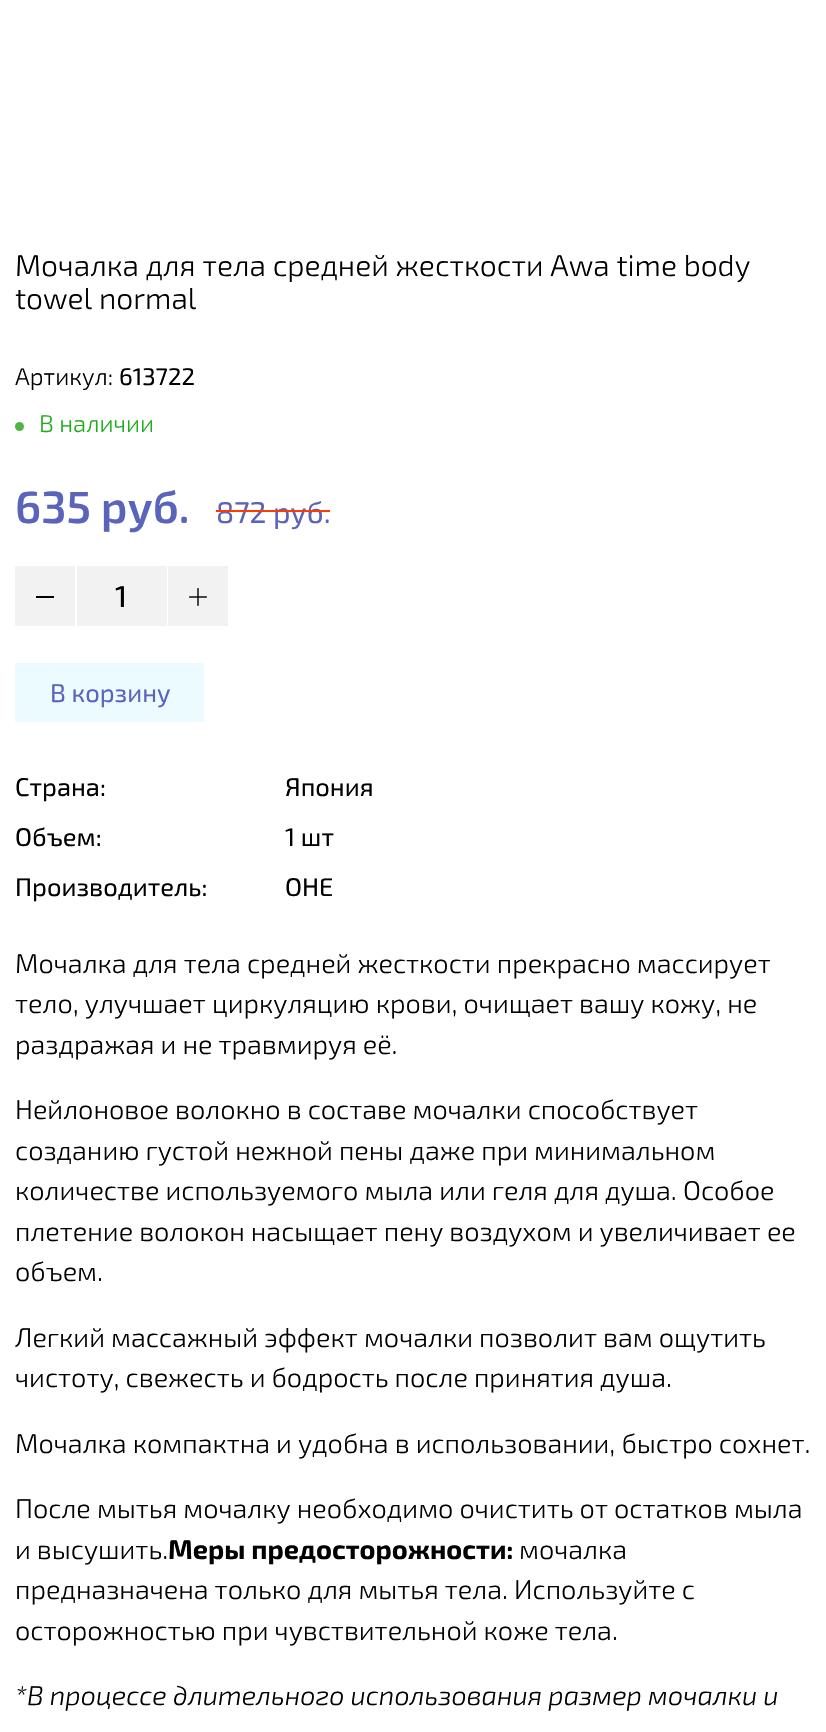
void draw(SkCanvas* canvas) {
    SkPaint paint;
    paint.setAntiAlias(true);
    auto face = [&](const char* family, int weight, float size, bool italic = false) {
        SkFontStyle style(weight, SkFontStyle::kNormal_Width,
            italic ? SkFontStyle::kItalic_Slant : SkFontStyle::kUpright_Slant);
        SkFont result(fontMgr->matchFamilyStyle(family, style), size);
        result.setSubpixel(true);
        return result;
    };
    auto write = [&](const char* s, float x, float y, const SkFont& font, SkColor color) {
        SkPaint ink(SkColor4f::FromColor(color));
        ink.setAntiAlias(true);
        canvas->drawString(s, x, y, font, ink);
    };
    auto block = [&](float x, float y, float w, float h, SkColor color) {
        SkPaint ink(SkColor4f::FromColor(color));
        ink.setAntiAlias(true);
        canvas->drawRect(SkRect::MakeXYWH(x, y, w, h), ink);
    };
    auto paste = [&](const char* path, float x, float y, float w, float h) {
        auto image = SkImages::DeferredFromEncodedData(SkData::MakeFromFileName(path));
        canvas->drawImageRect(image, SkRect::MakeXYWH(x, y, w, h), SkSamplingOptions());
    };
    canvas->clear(SK_ColorWHITE);
    auto kFont1 = face("Exo 2", 300, 30);
    write("Мочалка для тела средней жесткости Awa time body", 15, 276, kFont1, SK_ColorBLACK);
    write("towel normal", 15, 309, kFont1, SK_ColorBLACK);
    auto kFont2 = face("Exo 2", 300, 24);
    write("Артикул:", 15, 385, kFont2, SK_ColorBLACK);
    auto kFont3 = face("Exo 2", 400, 24);
    write("613722", 119, 385, kFont3, SK_ColorBLACK);
    paint.setColor(SkColorSetRGB(84, 179, 72));
    canvas->drawCircle(19.5f, 426.5f, 4.5f, paint);
    write("В наличии", 39, 432, kFont2, SkColorSetRGB(29, 173, 29));
    auto kFont4 = face("Exo 2", 600, 45);
    write("635 руб.", 15, 523, kFont4, SkColorSetRGB(90, 100, 187));
    auto kFont5 = face("Exo 2", 400, 30);
    write("872 руб.", 216, 523, kFont5, SkColorSetRGB(90, 100, 187));
    block(216, 510, 114, 2, SkColorSetRGB(254, 58, 0));
    block(15, 566, 60, 60, SkColorSetRGB(242, 242, 242));
    block(36, 596, 18, 2, SK_ColorBLACK);
    block(77, 566, 90, 60, SkColorSetRGB(242, 242, 242));
    auto kFont6 = face("Exo 2", 500, 30);
    write("1", 115, 607, kFont6, SK_ColorBLACK);
    block(168, 566, 60, 60, SkColorSetRGB(242, 242, 242));
    paste("pic1.png", 189, 588, 18, 18);
    block(15, 663, 189, 59, SkColorSetRGB(235, 251, 255));
    auto kFont7 = face("Exo 2", 400, 25.5f);
    write("В корзину", 50, 702, kFont7, SkColorSetRGB(90, 100, 187));
    write("Страна:", 15, 796, kFont7, SK_ColorBLACK);
    write("Япония", 285, 796, kFont7, SK_ColorBLACK);
    write("Объем:", 15, 846, kFont7, SK_ColorBLACK);
    write("1 шт", 285, 846, kFont7, SK_ColorBLACK);
    write("Производитель:", 15, 896, kFont7, SK_ColorBLACK);
    write("OHE", 285, 896, kFont7, SK_ColorBLACK);
    auto kFont8 = face("Exo 2", 300, 27);
    write("Мочалка для тела средней жесткости прекрасно массирует", 15, 973, kFont8, SK_ColorBLACK);
    write("тело, улучшает циркуляцию крови, очищает вашу кожу, не", 15, 1013, kFont8, SK_ColorBLACK);
    write("раздражая и не травмируя её.", 15, 1054, kFont8, SK_ColorBLACK);
    write("Нейлоновое волокно в составе мочалки способствует", 15, 1119, kFont8, SK_ColorBLACK);
    write("созданию густой нежной пены даже при минимальном", 15, 1160, kFont8, SK_ColorBLACK);
    write("количестве используемого мыла или геля для душа. Особое", 15, 1200, kFont8, SK_ColorBLACK);
    write("плетение волокон насыщает пену воздухом и увеличивает ее", 15, 1241, kFont8, SK_ColorBLACK);
    write("объем.", 15, 1281, kFont8, SK_ColorBLACK);
    write("Легкий массажный эффект мочалки позволит вам ощутить", 15, 1347, kFont8, SK_ColorBLACK);
    write("чистоту, свежесть и бодрость после принятия душа.", 15, 1387, kFont8, SK_ColorBLACK);
    write("Мочалка компактна и удобна в использовании, быстро сохнет.", 15, 1453, kFont8, SK_ColorBLACK);
    write("После мытья мочалку необходимо очистить от остатков мыла", 15, 1518, kFont8, SK_ColorBLACK);
    write("и высушить.", 15, 1559, kFont8, SK_ColorBLACK);
    auto kFont9 = face("Exo 2", 700, 27);
    write("Меры предосторожности:", 168, 1559, kFont9, SK_ColorBLACK);
    write("мочалка", 519, 1559, kFont8, SK_ColorBLACK);
    write("предназначена только для мытья тела. Используйте с", 15, 1599, kFont8, SK_ColorBLACK);
    write("осторожностью при чувствительной коже тела.", 15, 1640, kFont8, SK_ColorBLACK);
    auto kFont10 = face("Exo 2", 300, 27, true);
    write("*В процессе длительного использования размер мочалки и", 15, 1705, kFont10, SK_ColorBLACK);
}
